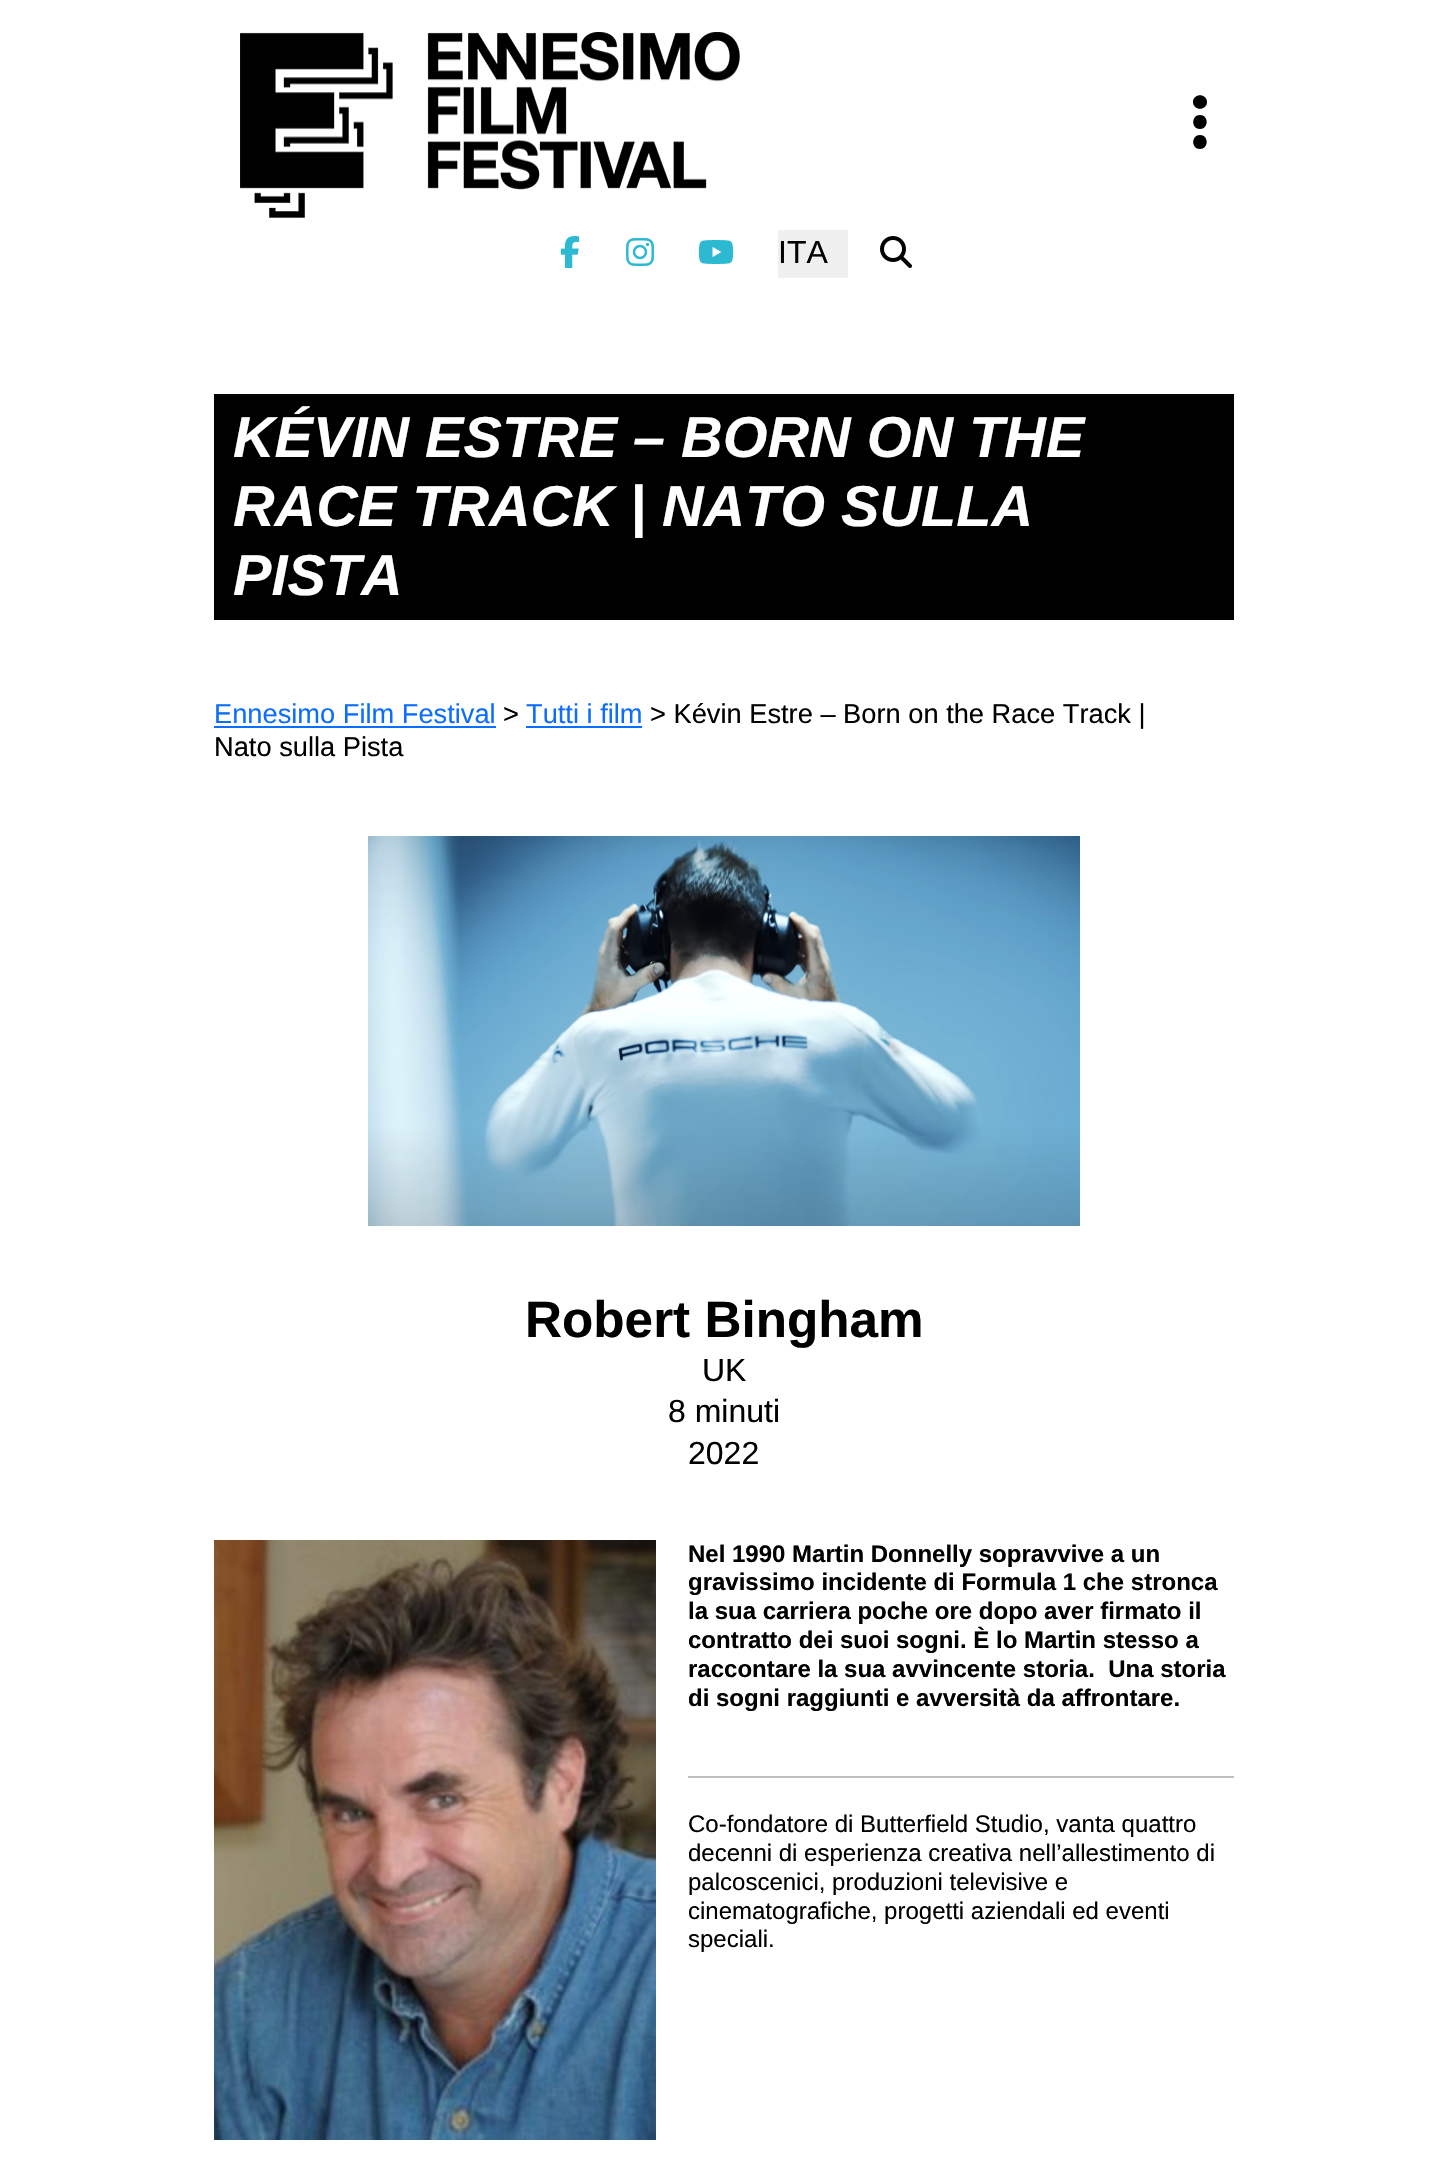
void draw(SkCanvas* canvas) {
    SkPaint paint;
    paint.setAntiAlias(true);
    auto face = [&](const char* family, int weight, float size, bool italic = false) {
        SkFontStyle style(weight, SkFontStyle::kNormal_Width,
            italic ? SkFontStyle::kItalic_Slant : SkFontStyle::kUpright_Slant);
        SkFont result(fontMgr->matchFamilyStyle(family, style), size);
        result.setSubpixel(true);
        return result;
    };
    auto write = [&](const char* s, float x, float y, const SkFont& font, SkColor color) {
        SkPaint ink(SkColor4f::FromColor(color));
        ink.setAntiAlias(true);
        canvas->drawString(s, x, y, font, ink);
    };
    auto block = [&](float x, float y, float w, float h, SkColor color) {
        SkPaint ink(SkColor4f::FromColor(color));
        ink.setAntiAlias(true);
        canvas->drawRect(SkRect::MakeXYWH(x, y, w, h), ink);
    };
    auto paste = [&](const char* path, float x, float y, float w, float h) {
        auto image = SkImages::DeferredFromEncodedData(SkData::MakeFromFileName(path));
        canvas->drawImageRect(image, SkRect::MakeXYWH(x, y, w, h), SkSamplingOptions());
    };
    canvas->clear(SK_ColorWHITE);
    paste("pic1.png", 240, 32, 500, 186);
    paint.setColor(SK_ColorBLACK);
    canvas->drawPath(SkPathBuilder().moveTo(1200, 135).cubicTo(1191, 135, 1191, 149, 1200, 149).cubicTo(1209, 149, 1209, 135, 1200, 135).close().moveTo(1200, 115).cubicTo(1191, 115, 1191, 129, 1200, 129).cubicTo(1209, 129, 1209, 115, 1200, 115).close().moveTo(1207, 102).cubicTo(1207, 93, 1193, 93, 1193, 102).cubicTo(1193, 111, 1207, 111, 1207, 102).close().detach(), paint);
    paste("pic2.png", 560, 236, 20, 32);
    paste("pic3.png", 626, 238, 28, 28);
    paste("pic4.png", 698, 240, 36, 24);
    block(778, 230, 70, 48, SkColorSetRGB(239, 239, 239));
    auto kFont1 = face("Liberation Sans", 400, 32);
    write("ITA", 778, 263, kFont1, SK_ColorBLACK);
    paste("pic5.png", 880, 236, 32, 32);
    block(214, 394, 1020, 226, SK_ColorBLACK);
    auto kFont2 = face("Liberation Sans", 700, 57.6f, true);
    write("KÉVIN ESTRE – BORN ON THE", 233, 457, kFont2, SK_ColorWHITE);
    write("RACE TRACK | NATO SULLA", 233, 526, kFont2, SK_ColorWHITE);
    write("PISTA", 233, 595, kFont2, SK_ColorWHITE);
    auto kFont3 = face("Liberation Sans", 400, 27.25f);
    write("Ennesimo Film Festival", 214, 723, kFont3, SkColorSetRGB(13, 110, 253));
    block(214, 726, 282, 2, SkColorSetRGB(13, 110, 253));
    write(">", 503, 723, kFont3, SK_ColorBLACK);
    write("Tutti i film", 526, 723, kFont3, SkColorSetRGB(13, 110, 253));
    block(526, 726, 116, 2, SkColorSetRGB(13, 110, 253));
    write("> Kévin Estre – Born on the Race Track |", 650, 723, kFont3, SK_ColorBLACK);
    write("Nato sulla Pista", 214, 756, kFont3, SK_ColorBLACK);
    paste("pic6.png", 368, 836, 712, 390);
    auto kFont4 = face("Liberation Sans", 700, 51.25f);
    write("Robert Bingham", 525, 1337, kFont4, SK_ColorBLACK);
    write("UK", 702, 1381, kFont1, SK_ColorBLACK);
    write("8 minuti", 668, 1422, kFont1, SK_ColorBLACK);
    write("2022", 688, 1464, kFont1, SK_ColorBLACK);
    paste("pic7.png", 214, 1540, 442, 600);
    auto kFont5 = face("Liberation Sans", 700, 24);
    write("Nel 1990 Martin Donnelly sopravvive a un", 688, 1562, kFont5, SK_ColorBLACK);
    write("gravissimo incidente di Formula 1 che stronca", 688, 1590, kFont5, SK_ColorBLACK);
    write("la sua carriera poche ore dopo aver firmato il", 688, 1619, kFont5, SK_ColorBLACK);
    write("contratto dei suoi sogni. È lo Martin stesso a", 688, 1648, kFont5, SK_ColorBLACK);
    write("raccontare la sua avvincente storia.  Una storia", 688, 1677, kFont5, SK_ColorBLACK);
    write("di sogni raggiunti e avversità da affrontare.", 688, 1706, kFont5, SK_ColorBLACK);
    block(688, 1776, 546, 2, SkColorSetRGB(191, 191, 191));
    auto kFont6 = face("Liberation Sans", 400, 24);
    write("Co-fondatore di Butterfield Studio, vanta quattro", 688, 1832, kFont6, SK_ColorBLACK);
    write("decenni di esperienza creativa nell’allestimento di", 688, 1861, kFont6, SK_ColorBLACK);
    write("palcoscenici, produzioni televisive e", 688, 1890, kFont6, SK_ColorBLACK);
    write("cinematografiche, progetti aziendali ed eventi", 688, 1919, kFont6, SK_ColorBLACK);
    write("speciali.", 688, 1947, kFont6, SK_ColorBLACK);
}
